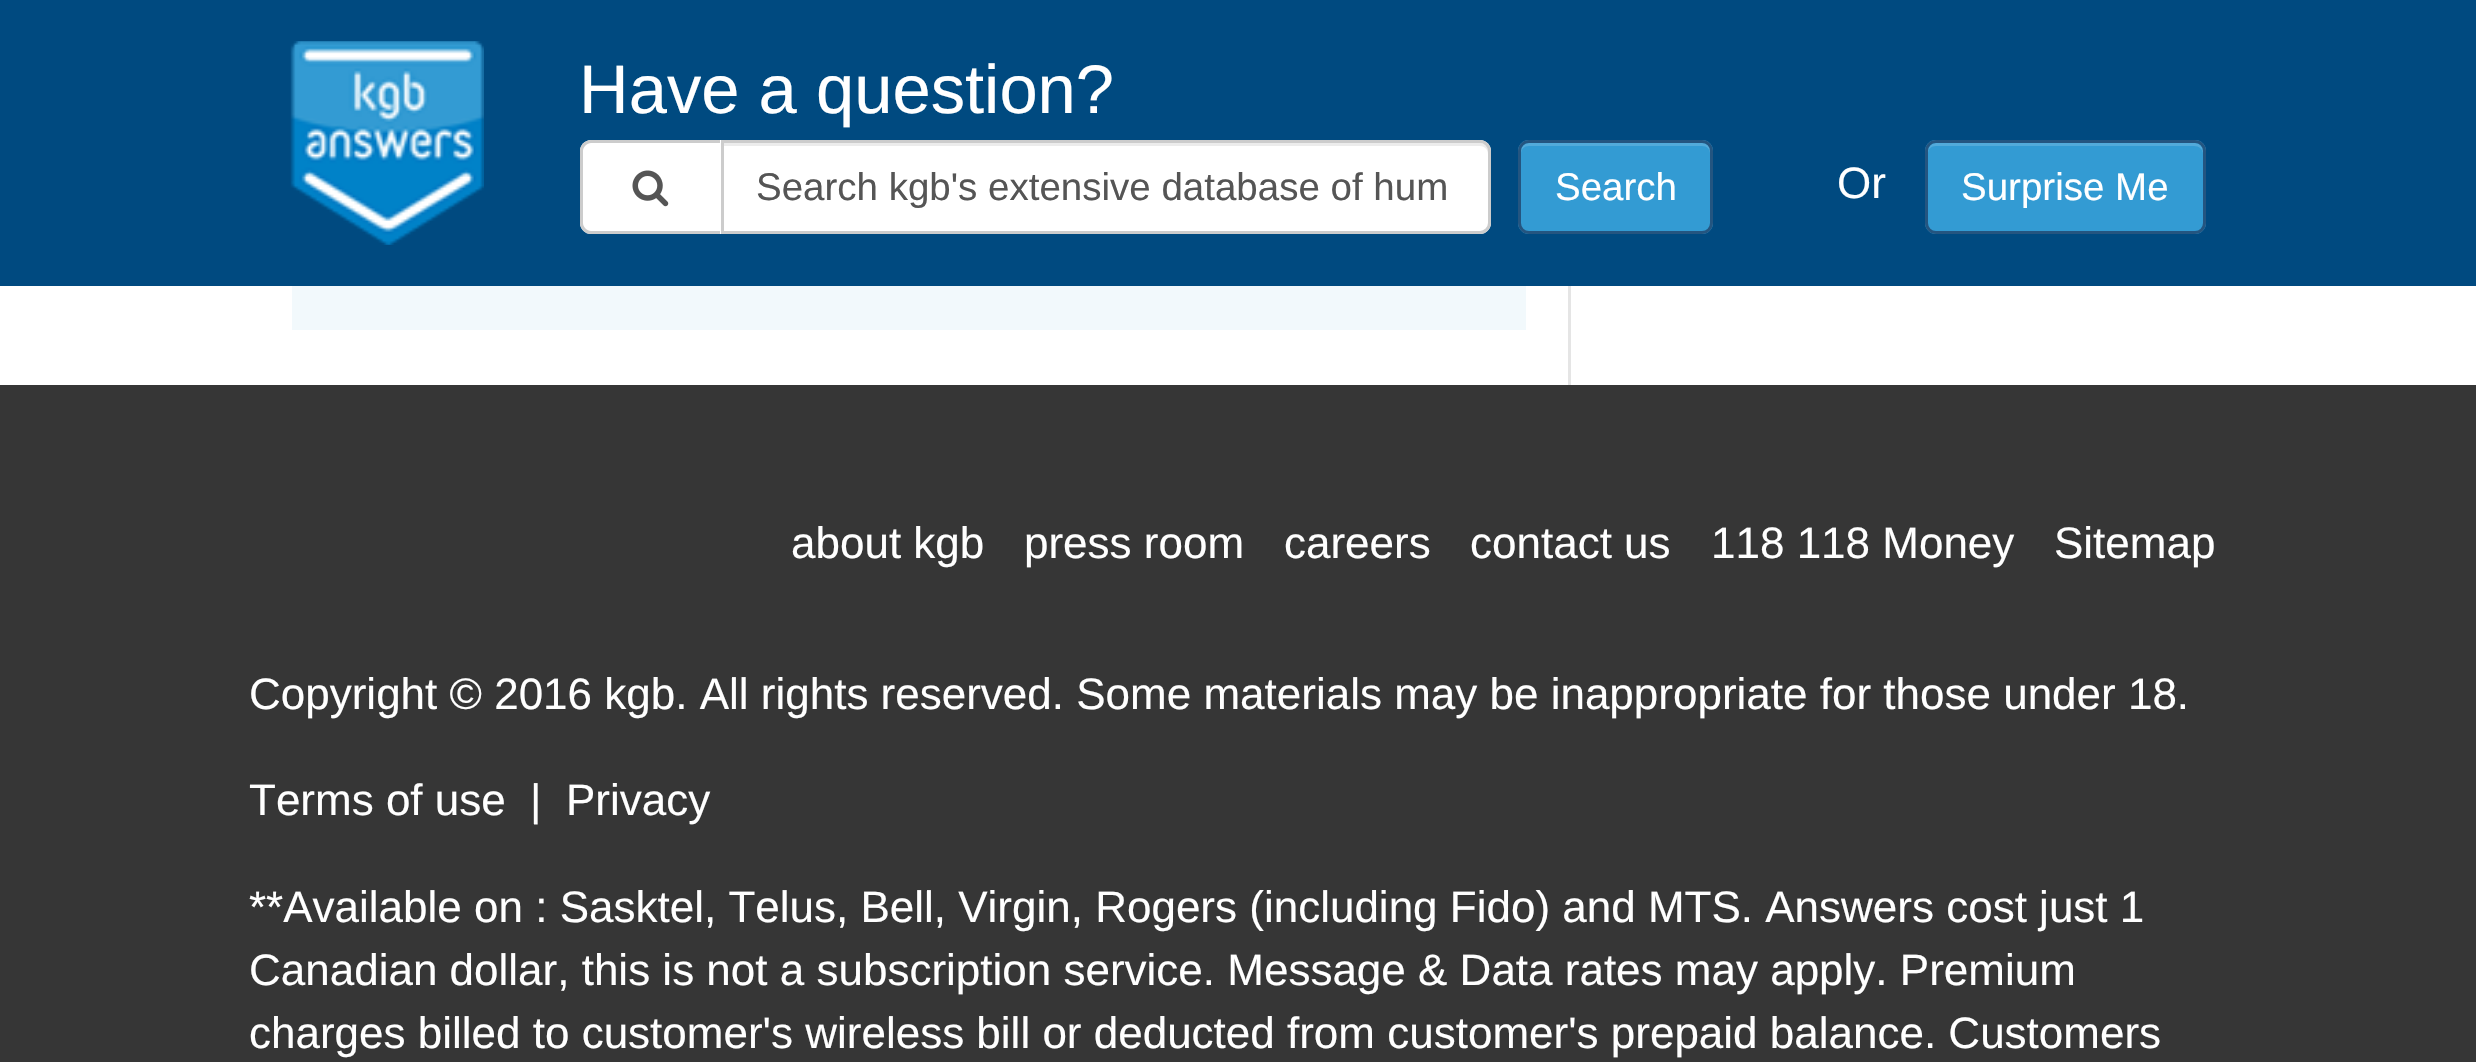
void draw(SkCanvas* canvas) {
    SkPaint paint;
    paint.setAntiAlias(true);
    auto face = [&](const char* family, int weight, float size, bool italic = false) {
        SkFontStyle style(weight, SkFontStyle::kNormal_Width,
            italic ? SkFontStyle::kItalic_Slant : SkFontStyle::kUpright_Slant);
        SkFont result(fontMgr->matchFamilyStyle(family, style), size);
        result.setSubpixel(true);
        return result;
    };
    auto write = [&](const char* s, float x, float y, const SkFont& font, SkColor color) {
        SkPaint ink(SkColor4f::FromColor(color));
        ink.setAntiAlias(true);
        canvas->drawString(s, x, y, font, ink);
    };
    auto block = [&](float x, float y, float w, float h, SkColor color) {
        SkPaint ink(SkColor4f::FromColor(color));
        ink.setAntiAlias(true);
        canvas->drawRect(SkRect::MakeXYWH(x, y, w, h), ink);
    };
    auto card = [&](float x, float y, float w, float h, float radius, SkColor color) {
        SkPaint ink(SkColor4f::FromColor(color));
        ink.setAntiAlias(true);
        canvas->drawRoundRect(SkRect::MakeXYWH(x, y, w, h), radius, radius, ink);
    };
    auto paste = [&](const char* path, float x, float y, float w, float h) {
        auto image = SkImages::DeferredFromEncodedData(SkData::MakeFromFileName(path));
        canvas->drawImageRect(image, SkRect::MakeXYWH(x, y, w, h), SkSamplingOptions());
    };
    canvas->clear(SK_ColorWHITE);
    block(0, 0, 2476, 286, SkColorSetRGB(0, 74, 128));
    paste("pic1.png", 290, 41, 194, 204);
    auto kFont1 = face("Liberation Sans", 400, 68.75f);
    write("Have a question?", 579, 113, kFont1, SK_ColorWHITE);
    paint.setColor(SK_ColorWHITE);
    canvas->drawPath(SkPathBuilder().moveTo(591, 140).lineTo(721, 140).lineTo(721, 234).lineTo(591, 234).cubicTo(585, 234, 580, 229, 580, 223).lineTo(580, 151).cubicTo(580, 145, 585, 140, 591, 140).close().detach(), paint);
    paint.setColor(SkColorSetRGB(204, 204, 204));
    canvas->drawPath(SkPathBuilder(SkPathFillType::kEvenOdd).moveTo(591, 140).lineTo(720, 140).lineTo(720, 234).lineTo(591, 234).cubicTo(585, 234, 580, 229, 580, 223).lineTo(580, 151).cubicTo(580, 145, 585, 140, 591, 140).close().moveTo(591, 143).lineTo(720, 143).lineTo(720, 231).lineTo(591, 231).cubicTo(587, 231, 583, 227, 583, 223).lineTo(583, 151).cubicTo(583, 147, 587, 143, 591, 143).close().detach(), paint);
    paste("pic2.png", 632, 170, 37, 37);
    paint.setColor(SK_ColorWHITE);
    canvas->drawPath(SkPathBuilder().moveTo(721, 140).lineTo(1480, 140).cubicTo(1486, 140, 1491, 145, 1491, 151).lineTo(1491, 223).cubicTo(1491, 229, 1486, 234, 1480, 234).lineTo(721, 234).close().detach(), paint);
    paint.setColor(SkColorSetRGB(236, 236, 236));
    canvas->drawPath(SkPathBuilder().moveTo(723, 146).lineTo(1480, 146).cubicTo(1484, 146, 1488, 149, 1488, 154).lineTo(1488, 151).cubicTo(1488, 147, 1484, 143, 1480, 143).lineTo(723, 143).close().detach(), paint);
    paint.setStyle(SkPaint::kStroke_Style);
    paint.setStrokeWidth(3);
    paint.setColor(SkColorSetRGB(204, 204, 204));
    canvas->drawPath(SkPathBuilder().moveTo(722.5f, 141.5f).lineTo(1480, 141.5f).cubicTo(1485, 141.5f, 1489.5f, 146, 1489.5f, 151).lineTo(1489.5f, 223).cubicTo(1489.5f, 228, 1485, 232.5f, 1480, 232.5f).lineTo(722.5f, 232.5f).close().detach(), paint);
    auto kFont2 = face("Liberation Sans", 400, 38.5f);
    write("Search kgb's extensive database of hum", 756, 200, kFont2, SkColorSetRGB(85, 85, 85));
    card(1518, 140, 195, 94, 11, SkColorSetRGB(51, 155, 211));
    paint.setStyle(SkPaint::kFill_Style);
    paint.setColor(SkColorSetRGB(82, 170, 218));
    canvas->drawPath(SkPathBuilder().moveTo(1529, 146).lineTo(1702, 146).cubicTo(1713, 146, 1710, 159, 1710, 166).lineTo(1710, 227).cubicTo(1711, 226, 1711, 224, 1711, 223).lineTo(1711, 151).cubicTo(1711, 147, 1707, 143, 1703, 143).lineTo(1529, 143).cubicTo(1525, 143, 1521, 147, 1521, 151).lineTo(1521, 154).cubicTo(1521, 149, 1524, 146, 1529, 146).close().detach(), paint);
    paint.setStyle(SkPaint::kStroke_Style);
    paint.setColor(SkColorSetRGB(36, 85, 128));
    canvas->drawRoundRect(SkRect::MakeXYWH(1519.5f, 141.5f, 192, 91), 9.5f, 9.5f, paint);
    write("Search", 1555, 200, kFont2, SK_ColorWHITE);
    auto kFont3 = face("Liberation Sans", 400, 44);
    write("Or", 1837, 198, kFont3, SK_ColorWHITE);
    card(1925, 140, 281, 94, 11, SkColorSetRGB(51, 155, 211));
    paint.setStyle(SkPaint::kFill_Style);
    paint.setColor(SkColorSetRGB(82, 170, 218));
    canvas->drawPath(SkPathBuilder().moveTo(1936, 146).lineTo(2194, 146).cubicTo(2199, 146, 2203, 149, 2203, 154).lineTo(2203, 151).cubicTo(2203, 147, 2199, 143, 2195, 143).lineTo(1936, 143).cubicTo(1932, 143, 1928, 147, 1928, 151).lineTo(1928, 154).cubicTo(1928, 149, 1931, 146, 1936, 146).close().detach(), paint);
    paint.setStyle(SkPaint::kStroke_Style);
    paint.setColor(SkColorSetRGB(36, 85, 128));
    canvas->drawRoundRect(SkRect::MakeXYWH(1926.5f, 141.5f, 278, 91), 9.5f, 9.5f, paint);
    write("Surprise Me", 1961, 200, kFont2, SK_ColorWHITE);
    block(1568, 286, 3, 99, SkColorSetRGB(229, 229, 229));
    block(292, 286, 1234, 44, SkColorSetRGB(242, 249, 252));
    block(0, 385, 2476, 677, SkColorSetRGB(54, 54, 54));
    write("about kgb", 791, 558, kFont3, SK_ColorWHITE);
    write("press room", 1024, 558, kFont3, SK_ColorWHITE);
    write("careers", 1284, 558, kFont3, SK_ColorWHITE);
    write("contact us", 1470, 558, kFont3, SK_ColorWHITE);
    write("118 118 Money", 1711, 558, kFont3, SK_ColorWHITE);
    write("Sitemap", 2054, 558, kFont3, SK_ColorWHITE);
    write("Copyright © 2016 kgb. All rights reserved. Some materials may be inappropriate for those under 18.", 249, 709, kFont3, SK_ColorWHITE);
    write("Terms of use", 249, 815, kFont3, SK_ColorWHITE);
    write("|  Privacy", 530, 815, kFont3, SK_ColorWHITE);
    write("**Available on : Sasktel, Telus, Bell, Virgin, Rogers (including Fido) and MTS. Answers cost just 1", 249, 922, kFont3, SK_ColorWHITE);
    write("Canadian dollar, this is not a subscription service. Message & Data rates may apply. Premium", 249, 985, kFont3, SK_ColorWHITE);
    write("charges billed to customer's wireless bill or deducted from customer's prepaid balance. Customers", 249, 1048, kFont3, SK_ColorWHITE);
}
